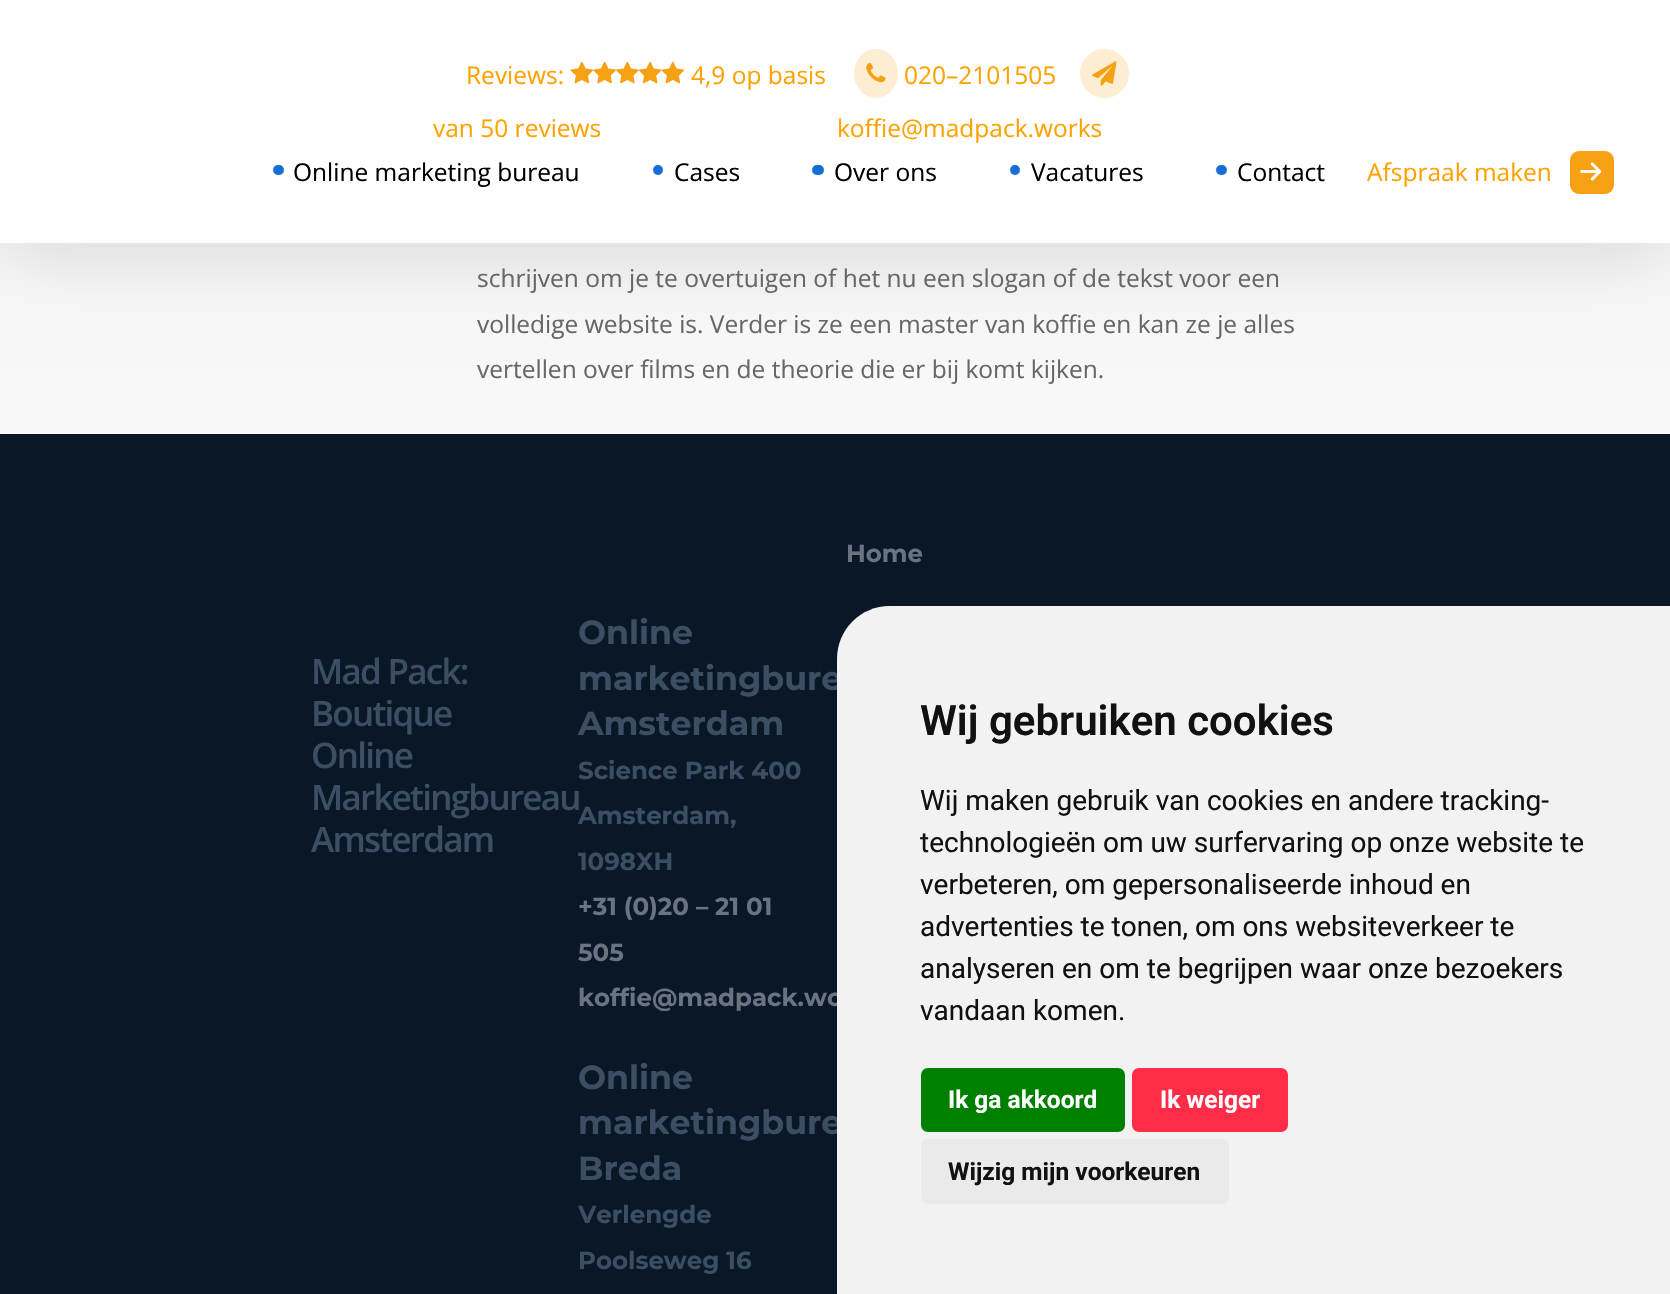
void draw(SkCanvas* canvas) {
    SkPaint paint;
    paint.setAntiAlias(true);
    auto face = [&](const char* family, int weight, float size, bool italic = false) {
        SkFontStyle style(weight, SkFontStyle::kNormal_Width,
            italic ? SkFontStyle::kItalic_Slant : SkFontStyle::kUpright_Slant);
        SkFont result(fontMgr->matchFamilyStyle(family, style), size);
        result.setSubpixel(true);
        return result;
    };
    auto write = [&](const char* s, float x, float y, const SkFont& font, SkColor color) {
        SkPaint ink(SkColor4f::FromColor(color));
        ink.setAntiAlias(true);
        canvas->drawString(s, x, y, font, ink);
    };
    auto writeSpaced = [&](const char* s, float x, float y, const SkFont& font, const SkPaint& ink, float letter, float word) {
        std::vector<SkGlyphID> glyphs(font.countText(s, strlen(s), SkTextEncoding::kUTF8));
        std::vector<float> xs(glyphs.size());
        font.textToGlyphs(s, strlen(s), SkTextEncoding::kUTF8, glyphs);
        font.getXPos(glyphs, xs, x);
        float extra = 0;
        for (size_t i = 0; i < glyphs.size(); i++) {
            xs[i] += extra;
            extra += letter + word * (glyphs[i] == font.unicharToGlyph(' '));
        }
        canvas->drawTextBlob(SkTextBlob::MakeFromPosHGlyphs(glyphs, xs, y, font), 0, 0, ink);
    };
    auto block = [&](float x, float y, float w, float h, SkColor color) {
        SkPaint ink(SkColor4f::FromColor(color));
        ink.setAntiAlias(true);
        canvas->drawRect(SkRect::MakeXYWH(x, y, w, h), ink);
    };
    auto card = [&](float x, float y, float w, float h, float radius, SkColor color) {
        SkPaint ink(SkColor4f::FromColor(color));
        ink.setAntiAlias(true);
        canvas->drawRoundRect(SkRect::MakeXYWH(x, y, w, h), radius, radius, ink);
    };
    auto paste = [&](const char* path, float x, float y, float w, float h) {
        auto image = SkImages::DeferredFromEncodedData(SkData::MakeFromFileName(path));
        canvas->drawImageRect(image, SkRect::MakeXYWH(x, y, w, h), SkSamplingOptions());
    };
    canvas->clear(SkColorSetRGB(248, 248, 248));
    paint.setColor(SkColorSetARGB(38, 0, 0, 0));
    paint.setMaskFilter(SkMaskFilter::MakeBlur(kNormal_SkBlurStyle, 39.5f));
    canvas->drawRect(SkRect::MakeXYWH(0, 5, 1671, 244), paint);
    paint.setMaskFilter(nullptr);
    block(0, 0, 1670, 243, SK_ColorWHITE);
    auto kFont1 = face("Open Sans", 400, 24.5f);
    write("Reviews:", 466, 84, kFont1, SkColorSetRGB(255, 162, 0));
    paste("pic1.png", 570, 61, 24, 23);
    paste("pic2.png", 593, 61, 23, 23);
    paste("pic3.png", 616, 61, 23, 23);
    paste("pic4.png", 638, 61, 24, 23);
    paste("pic5.png", 661, 61, 24, 23);
    write("4,9 op basis", 691, 84, kFont1, SkColorSetRGB(255, 162, 0));
    write("van 50 reviews", 433, 137, kFont1, SkColorSetRGB(255, 162, 0));
    paint.setColor(SkColorSetRGB(253, 237, 210));
    canvas->drawOval(SkRect::MakeXYWH(854, 49, 44, 49), paint);
    paste("pic6.png", 866, 63, 20, 20);
    write("020–2101505", 904, 84, kFont1, SkColorSetRGB(255, 162, 0));
    canvas->drawCircle(1104.5f, 73.5f, 24.5f, paint);
    paste("pic7.png", 1092, 61, 25, 25);
    write("koffie@madpack.works", 837, 137, kFont1, SkColorSetRGB(255, 162, 0));
    paint.setColor(SkColorSetRGB(22, 110, 212));
    canvas->drawRoundRect(SkRect::MakeXYWH(273.1f, 165.1f, 10.8f, 9.8f), 4.9f, 4.9f, paint);
    paint.setStyle(SkPaint::kStroke_Style);
    paint.setStrokeWidth(0.2f);
    canvas->drawRoundRect(SkRect::MakeXYWH(273.1f, 165.1f, 10.8f, 9.8f), 4.9f, 4.9f, paint);
    write("Online marketing bureau", 293, 181, kFont1, SK_ColorBLACK);
    paint.setStyle(SkPaint::kFill_Style);
    canvas->drawCircle(658, 170, 4.9f, paint);
    paint.setStyle(SkPaint::kStroke_Style);
    canvas->drawCircle(658, 170, 4.9f, paint);
    write("Cases", 674, 181, kFont1, SK_ColorBLACK);
    paint.setStyle(SkPaint::kFill_Style);
    canvas->drawRoundRect(SkRect::MakeXYWH(812.1f, 165.1f, 11.8f, 9.8f), 4.9f, 4.9f, paint);
    paint.setStyle(SkPaint::kStroke_Style);
    canvas->drawRoundRect(SkRect::MakeXYWH(812.1f, 165.1f, 11.8f, 9.8f), 4.9f, 4.9f, paint);
    write("Over ons", 834, 181, kFont1, SK_ColorBLACK);
    paint.setStyle(SkPaint::kFill_Style);
    canvas->drawCircle(1015, 170, 4.9f, paint);
    paint.setStyle(SkPaint::kStroke_Style);
    canvas->drawCircle(1015, 170, 4.9f, paint);
    write("Vacatures", 1031, 181, kFont1, SK_ColorBLACK);
    paint.setStyle(SkPaint::kFill_Style);
    canvas->drawRoundRect(SkRect::MakeXYWH(1216.1f, 165.1f, 10.8f, 9.8f), 4.9f, 4.9f, paint);
    paint.setStyle(SkPaint::kStroke_Style);
    canvas->drawRoundRect(SkRect::MakeXYWH(1216.1f, 165.1f, 10.8f, 9.8f), 4.9f, 4.9f, paint);
    write("Contact", 1237, 181, kFont1, SK_ColorBLACK);
    write("Afspraak maken", 1367, 181, kFont1, SkColorSetRGB(255, 162, 0));
    card(1570, 151, 44, 43, 9, SkColorSetRGB(246, 161, 20));
    paste("pic8.png", 1580, 162, 21, 19);
    write("schrijven om je te overtuigen of het nu een slogan of de tekst voor een", 477, 287, kFont1, SkColorSetRGB(103, 103, 103));
    write("volledige website is. Verder is ze een master van koffie en kan ze je alles", 477, 333, kFont1, SkColorSetRGB(103, 103, 103));
    write("vertellen over films en de theorie die er bij komt kijken.", 477, 378, kFont1, SkColorSetRGB(103, 103, 103));
    block(0, 434, 1670, 860, SkColorSetRGB(9, 23, 39));
    auto kFont2 = face("Montserrat", 100, 24.5f);
    write("Home", 846, 562, kFont2, SkColorSetRGB(105, 116, 129));
    auto kFont3 = face("Open Sans", 600, 35);
    paint.setStyle(SkPaint::kFill_Style);
    paint.setColor(SkColorSetRGB(60, 78, 99));
    writeSpaced("Mad Pack:", 311, 684, kFont3, paint, -1.75f, 0);
    writeSpaced("Boutique", 311, 726, kFont3, paint, -1.75f, 0);
    writeSpaced("Online", 311, 768, kFont3, paint, -1.75f, 0);
    writeSpaced("Marketingbureau", 311, 810, kFont3, paint, -1.75f, 0);
    writeSpaced("Amsterdam", 311, 852, kFont3, paint, -1.75f, 0);
    auto kFont4 = face("Montserrat", 100, 33.25f);
    write("Online", 578, 644, kFont4, SkColorSetRGB(60, 78, 99));
    write("marketingbure", 578, 690, kFont4, SkColorSetRGB(60, 78, 99));
    write("Amsterdam", 578, 735, kFont4, SkColorSetRGB(60, 78, 99));
    write("Science Park 400", 578, 779, kFont2, SkColorSetRGB(60, 78, 99));
    write("Amsterdam,", 578, 824, kFont2, SkColorSetRGB(60, 78, 99));
    write("1098XH", 578, 870, kFont2, SkColorSetRGB(60, 78, 99));
    write("+31 (0)20 – 21 01", 578, 915, kFont2, SkColorSetRGB(105, 116, 129));
    write("505", 578, 961, kFont2, SkColorSetRGB(105, 116, 129));
    write("koffie@madpack.wo", 578, 1006, kFont2, SkColorSetRGB(105, 116, 129));
    write("Online", 578, 1089, kFont4, SkColorSetRGB(60, 78, 99));
    write("marketingbure", 578, 1134, kFont4, SkColorSetRGB(60, 78, 99));
    write("Breda", 578, 1180, kFont4, SkColorSetRGB(60, 78, 99));
    write("Verlengde", 578, 1223, kFont2, SkColorSetRGB(60, 78, 99));
    write("Poolseweg 16", 578, 1269, kFont2, SkColorSetRGB(60, 78, 99));
    paint.setColor(SkColorSetRGB(242, 242, 242));
    canvas->drawPath(SkPathBuilder().moveTo(890, 606).lineTo(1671, 606).lineTo(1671, 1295).lineTo(837, 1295).lineTo(837, 659).cubicTo(837, 629.5f, 860.5f, 606, 890, 606).close().detach(), paint);
    auto kFont5 = face("Roboto", 600, 42);
    write("Wij gebruiken cookies", 920, 735, kFont5, SkColorSetRGB(17, 17, 17));
    auto kFont6 = face("Roboto", 400, 28);
    write("Wij maken gebruik van cookies en andere tracking-", 920, 810, kFont6, SkColorSetRGB(17, 17, 17));
    write("technologieën om uw surfervaring op onze website te", 920, 852, kFont6, SkColorSetRGB(17, 17, 17));
    write("verbeteren, om gepersonaliseerde inhoud en", 920, 894, kFont6, SkColorSetRGB(17, 17, 17));
    write("advertenties te tonen, om ons websiteverkeer te", 920, 936, kFont6, SkColorSetRGB(17, 17, 17));
    write("analyseren en om te begrijpen waar onze bezoekers", 920, 978, kFont6, SkColorSetRGB(17, 17, 17));
    write("vandaan komen.", 920, 1020, kFont6, SkColorSetRGB(17, 17, 17));
    card(921, 1068, 204, 64, 7, SkColorSetRGB(0, 128, 0));
    auto kFont7 = face("Roboto", 700, 24.5f);
    write("Ik ga akkoord", 948, 1108, kFont7, SK_ColorWHITE);
    card(1132, 1068, 156, 64, 7, SkColorSetRGB(255, 44, 71));
    write("Ik weiger", 1160, 1108, kFont7, SK_ColorWHITE);
    card(921, 1139, 308, 65, 7, SkColorSetRGB(234, 234, 234));
    write("Wijzig mijn voorkeuren", 948, 1180, kFont7, SkColorSetRGB(17, 17, 17));
}
